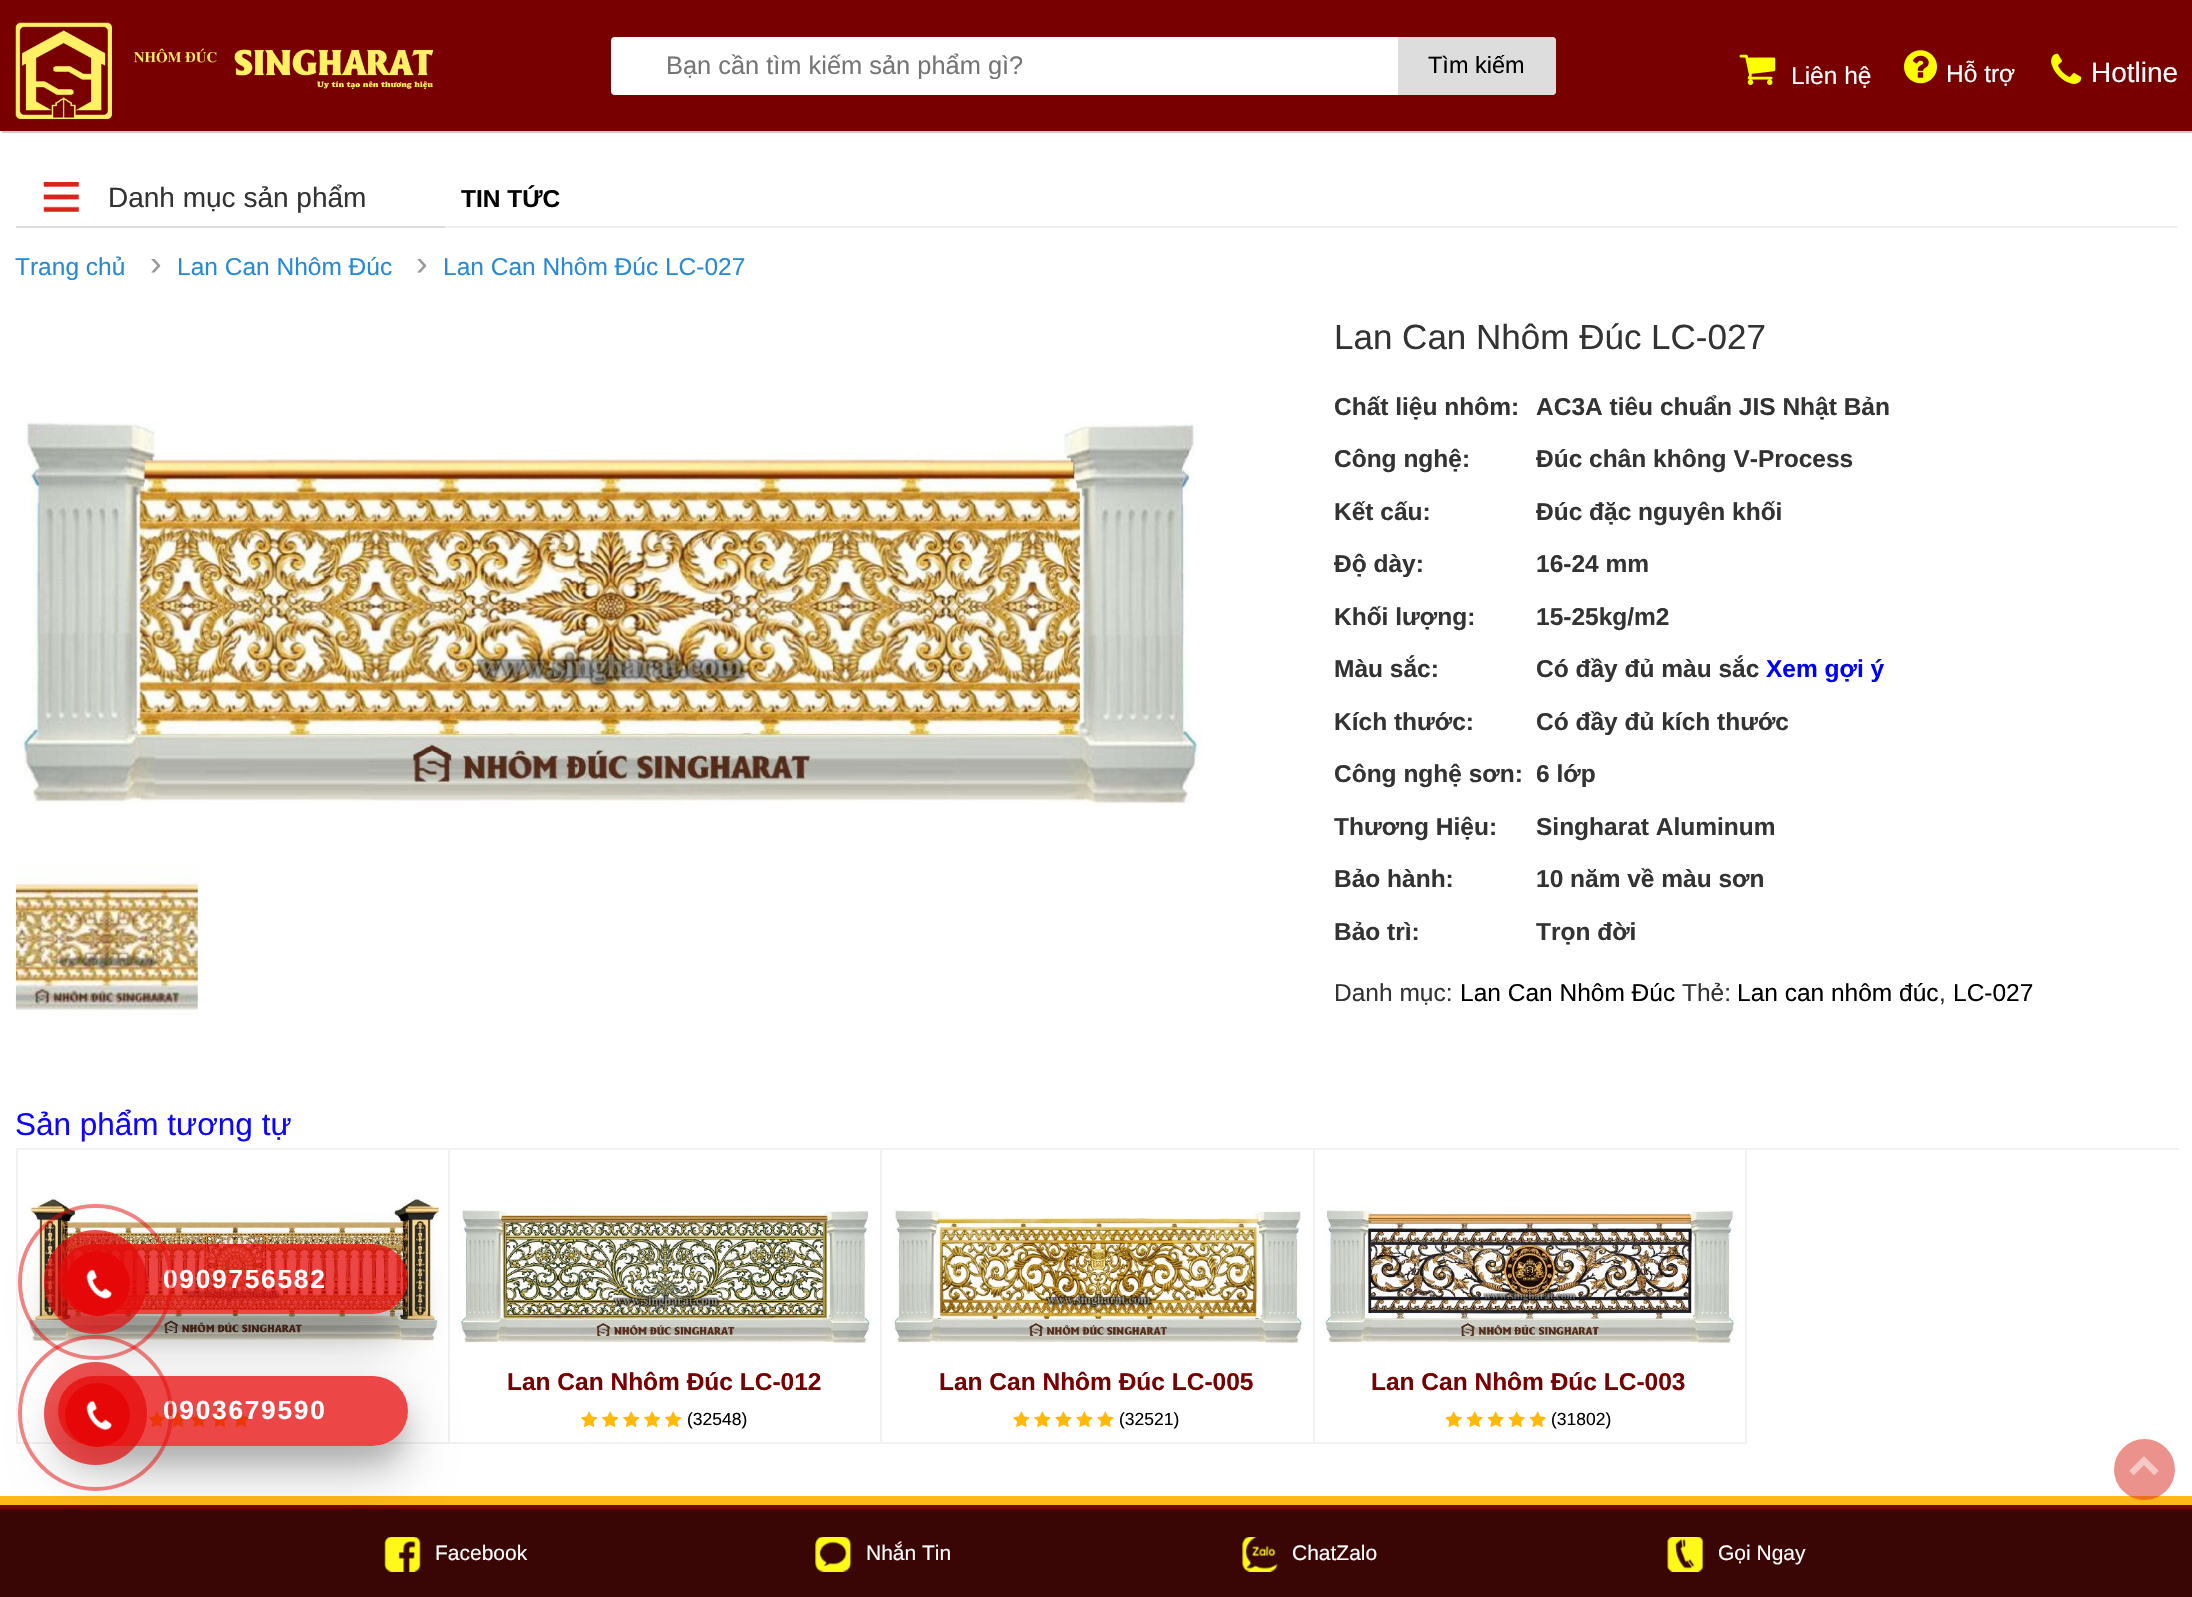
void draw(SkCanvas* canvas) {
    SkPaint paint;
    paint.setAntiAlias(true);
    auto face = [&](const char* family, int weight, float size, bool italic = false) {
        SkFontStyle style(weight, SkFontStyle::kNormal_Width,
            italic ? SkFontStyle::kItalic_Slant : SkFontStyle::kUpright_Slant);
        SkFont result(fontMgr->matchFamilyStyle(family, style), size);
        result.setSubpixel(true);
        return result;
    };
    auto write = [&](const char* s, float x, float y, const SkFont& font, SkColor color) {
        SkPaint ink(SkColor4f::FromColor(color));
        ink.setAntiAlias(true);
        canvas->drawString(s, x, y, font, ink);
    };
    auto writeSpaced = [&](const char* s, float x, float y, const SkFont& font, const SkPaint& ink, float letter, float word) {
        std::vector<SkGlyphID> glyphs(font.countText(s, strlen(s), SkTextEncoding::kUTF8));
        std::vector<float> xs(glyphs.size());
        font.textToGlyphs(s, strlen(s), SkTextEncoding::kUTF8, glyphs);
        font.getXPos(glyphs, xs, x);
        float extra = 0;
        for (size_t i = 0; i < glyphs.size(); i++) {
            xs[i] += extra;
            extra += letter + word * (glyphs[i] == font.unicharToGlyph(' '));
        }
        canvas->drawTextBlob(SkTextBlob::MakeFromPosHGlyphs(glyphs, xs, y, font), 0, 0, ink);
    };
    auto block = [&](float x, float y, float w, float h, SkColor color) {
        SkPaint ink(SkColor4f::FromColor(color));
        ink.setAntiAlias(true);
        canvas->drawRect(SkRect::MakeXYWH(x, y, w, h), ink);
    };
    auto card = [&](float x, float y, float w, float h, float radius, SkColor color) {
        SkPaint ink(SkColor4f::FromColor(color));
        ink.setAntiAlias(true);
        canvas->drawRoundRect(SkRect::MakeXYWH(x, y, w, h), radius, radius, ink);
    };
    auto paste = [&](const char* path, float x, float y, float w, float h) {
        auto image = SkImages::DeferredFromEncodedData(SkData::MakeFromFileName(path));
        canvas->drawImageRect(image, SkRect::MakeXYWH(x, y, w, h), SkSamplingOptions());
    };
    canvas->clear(SK_ColorWHITE);
    paint.setColor(SkColorSetRGB(204, 204, 204));
    canvas->drawPath(SkPathBuilder().moveTo(2, 131).lineTo(2, 133).lineTo(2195, 133).lineTo(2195, 2).lineTo(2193, 2).lineTo(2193, 131).close().detach(), paint);
    block(0, 0, 2192, 131, SkColorSetRGB(120, 0, 1));
    card(611, 37, 945, 58, 4, SK_ColorWHITE);
    canvas->save();
    canvas->clipRect(SkRect::MakeXYWH(611, 51, 945, 28));
    auto kFont1 = face("Liberation Sans", 400, 25.4f);
    write("Bạn cần tìm kiếm sản phẩm gì?", 666, 74, kFont1, SkColorSetRGB(117, 117, 117));
    canvas->restore();
    paint.setColor(SkColorSetRGB(221, 221, 221));
    canvas->drawPath(SkPathBuilder().moveTo(1398, 37).lineTo(1552, 37).cubicTo(1554, 37, 1556, 39, 1556, 41).lineTo(1556, 91).cubicTo(1556, 93, 1554, 95, 1552, 95).lineTo(1398, 95).close().detach(), paint);
    auto kFont2 = face("Liberation Sans", 400, 23.5f);
    write("Tìm kiếm", 1428, 73, kFont2, SK_ColorBLACK);
    paste("pic1.png", 15, 22, 97, 97);
    paste("pic2.png", 134, 48, 300, 42);
    paste("pic3.png", 1739, 54, 37, 31);
    auto kFont3 = face("Liberation Sans", 400, 24.5f);
    write("Liên hệ", 1791, 84, kFont3, SK_ColorWHITE);
    paste("pic4.png", 1904, 50, 33, 34);
    write("Hỗ trợ", 1946, 82, kFont3, SK_ColorWHITE);
    paste("pic5.png", 2051, 53, 31, 31);
    auto kFont4 = face("Liberation Sans", 400, 28);
    write("Hotline", 2091, 82, kFont4, SK_ColorWHITE);
    block(16, 226, 429, 2, SkColorSetRGB(221, 221, 221));
    paste("pic6.png", 43, 182, 36, 30);
    write("Danh mục sản phẩm", 108, 207, kFont4, SkColorSetRGB(51, 51, 51));
    block(445, 226, 1732, 2, SkColorSetRGB(238, 238, 238));
    auto kFont5 = face("Liberation Sans", 700, 24.5f);
    write("TIN TỨC", 461, 207, kFont5, SK_ColorBLACK);
    write("Trang chủ", 15, 275, kFont3, SkColorSetRGB(40, 138, 214));
    auto kFont6 = face("Liberation Sans", 400, 35);
    write("›", 150, 275, kFont6, SkColorSetRGB(153, 153, 153));
    write("Lan Can Nhôm Đúc", 177, 275, kFont3, SkColorSetRGB(40, 138, 214));
    write("›", 416, 275, kFont6, SkColorSetRGB(153, 153, 153));
    write("Lan Can Nhôm Đúc LC-027", 443, 275, kFont3, SkColorSetRGB(40, 138, 214));
    paste("pic7.png", 16, 422, 1187, 383);
    paste("pic8.png", 15, 865, 183, 150);
    write("Lan Can Nhôm Đúc LC-027", 1334, 349, kFont6, SkColorSetRGB(51, 51, 51));
    write("Chất liệu nhôm:", 1334, 415, kFont5, SkColorSetRGB(51, 51, 51));
    write("AC3A tiêu chuẩn JIS Nhật Bản", 1536, 415, kFont5, SkColorSetRGB(51, 51, 51));
    write("Công nghệ:", 1334, 467, kFont5, SkColorSetRGB(51, 51, 51));
    write("Đúc chân không V-Process", 1536, 467, kFont5, SkColorSetRGB(51, 51, 51));
    write("Kết cấu:", 1334, 520, kFont5, SkColorSetRGB(51, 51, 51));
    write("Đúc đặc nguyên khối", 1536, 520, kFont5, SkColorSetRGB(51, 51, 51));
    write("Độ dày:", 1334, 572, kFont5, SkColorSetRGB(51, 51, 51));
    write("16-24 mm", 1536, 572, kFont5, SkColorSetRGB(51, 51, 51));
    write("Khối lượng:", 1334, 625, kFont5, SkColorSetRGB(51, 51, 51));
    write("15-25kg/m2", 1536, 625, kFont5, SkColorSetRGB(51, 51, 51));
    write("Màu sắc:", 1334, 677, kFont5, SkColorSetRGB(51, 51, 51));
    write("Có đầy đủ màu sắc", 1536, 677, kFont5, SkColorSetRGB(51, 51, 51));
    write("Xem gợi ý", 1766, 677, kFont5, SkColorSetRGB(0, 0, 255));
    write("Kích thước:", 1334, 730, kFont5, SkColorSetRGB(51, 51, 51));
    write("Có đầy đủ kích thước", 1536, 730, kFont5, SkColorSetRGB(51, 51, 51));
    write("Công nghệ sơn:", 1334, 782, kFont5, SkColorSetRGB(51, 51, 51));
    write("6 lớp", 1536, 782, kFont5, SkColorSetRGB(51, 51, 51));
    write("Thương Hiệu:", 1334, 835, kFont5, SkColorSetRGB(51, 51, 51));
    write("Singharat Aluminum", 1536, 835, kFont5, SkColorSetRGB(51, 51, 51));
    write("Bảo hành:", 1334, 887, kFont5, SkColorSetRGB(51, 51, 51));
    write("10 năm về màu sơn", 1536, 887, kFont5, SkColorSetRGB(51, 51, 51));
    write("Bảo trì:", 1334, 940, kFont5, SkColorSetRGB(51, 51, 51));
    write("Trọn đời", 1536, 940, kFont5, SkColorSetRGB(51, 51, 51));
    write("Danh mục:", 1334, 1001, kFont3, SkColorSetRGB(51, 51, 51));
    write("Lan Can Nhôm Đúc", 1460, 1001, kFont3, SK_ColorBLACK);
    write("Thẻ:", 1682, 1001, kFont3, SkColorSetRGB(51, 51, 51));
    write("Lan can nhôm đúc", 1737, 1001, kFont3, SK_ColorBLACK);
    write(",", 1939, 1001, kFont3, SkColorSetRGB(51, 51, 51));
    write("LC-027", 1953, 1001, kFont3, SK_ColorBLACK);
    auto kFont7 = face("Liberation Sans", 400, 31.5f);
    write("Sản phẩm tương tự", 15, 1135, kFont7, SkColorSetRGB(15, 5, 255));
    block(16, 1148, 2163, 2, SkColorSetRGB(241, 241, 241));
    block(16, 1148, 2, 296, SkColorSetRGB(241, 241, 241));
    block(448, 1150, 2, 294, SkColorSetRGB(241, 241, 241));
    block(18, 1442, 432, 2, SkColorSetRGB(241, 241, 241));
    paste("pic9.png", 26, 1195, 414, 152);
    paste("pic10.png", 148, 1411, 17, 16);
    paste("pic10.png", 169, 1411, 17, 16);
    paste("pic10.png", 190, 1411, 17, 16);
    paste("pic11.png", 211, 1411, 17, 16);
    paste("pic11.png", 232, 1411, 17, 16);
    block(880, 1150, 2, 294, SkColorSetRGB(241, 241, 241));
    block(450, 1442, 432, 2, SkColorSetRGB(241, 241, 241));
    paste("pic12.png", 459, 1207, 412, 137);
    write("Lan Can Nhôm Đúc LC-012", 507, 1390, kFont5, SkColorSetRGB(120, 0, 1));
    paste("pic13.png", 581, 1411, 17, 16);
    paste("pic13.png", 602, 1411, 17, 16);
    paste("pic13.png", 623, 1411, 17, 16);
    paste("pic13.png", 644, 1411, 17, 16);
    paste("pic13.png", 665, 1411, 17, 16);
    auto kFont8 = face("Liberation Sans", 400, 17.5f);
    write("(32548)", 687, 1425, kFont8, SK_ColorBLACK);
    block(1313, 1150, 2, 294, SkColorSetRGB(241, 241, 241));
    block(882, 1442, 432, 2, SkColorSetRGB(241, 241, 241));
    paste("pic14.png", 891, 1206, 412, 138);
    write("Lan Can Nhôm Đúc LC-005", 939, 1390, kFont5, SkColorSetRGB(120, 0, 1));
    paste("pic15.png", 1013, 1411, 17, 16);
    paste("pic16.png", 1034, 1411, 17, 16);
    paste("pic16.png", 1055, 1411, 17, 16);
    paste("pic16.png", 1076, 1411, 17, 16);
    paste("pic16.png", 1097, 1411, 17, 16);
    write("(32521)", 1119, 1425, kFont8, SK_ColorBLACK);
    block(1745, 1150, 2, 294, SkColorSetRGB(241, 241, 241));
    block(1314, 1442, 433, 2, SkColorSetRGB(241, 241, 241));
    paste("pic17.png", 1323, 1206, 413, 138);
    write("Lan Can Nhôm Đúc LC-003", 1371, 1390, kFont5, SkColorSetRGB(120, 0, 1));
    paste("pic18.png", 1445, 1411, 17, 16);
    paste("pic18.png", 1466, 1411, 17, 16);
    paste("pic18.png", 1487, 1411, 17, 16);
    paste("pic18.png", 1508, 1411, 17, 16);
    paste("pic18.png", 1529, 1411, 17, 16);
    write("(31802)", 1551, 1425, kFont8, SK_ColorBLACK);
    canvas->save();
    canvas->clipPath(SkPathBuilder(SkPathFillType::kEvenOdd).moveTo(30, 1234).lineTo(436, 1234).lineTo(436, 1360).lineTo(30, 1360).close().moveTo(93, 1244).lineTo(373, 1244).cubicTo(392.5f, 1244, 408, 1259.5f, 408, 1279).cubicTo(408, 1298.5f, 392.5f, 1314, 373, 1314).lineTo(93, 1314).cubicTo(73.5f, 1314, 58, 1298.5f, 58, 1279).cubicTo(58, 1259.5f, 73.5f, 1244, 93, 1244).close().detach(), true);
    paint.setColor(SkColorSetARGB(26, 0, 0, 0));
    paint.setMaskFilter(SkMaskFilter::MakeBlur(kNormal_SkBlurStyle, 9));
    canvas->drawRoundRect(SkRect::MakeXYWH(58, 1262, 350, 70), 35, 35, paint);
    paint.setMaskFilter(nullptr);
    canvas->restore();
    canvas->save();
    canvas->clipPath(SkPathBuilder(SkPathFillType::kEvenOdd).moveTo(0, 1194).lineTo(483, 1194).lineTo(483, 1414).lineTo(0, 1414).close().moveTo(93, 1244).lineTo(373, 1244).cubicTo(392.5f, 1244, 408, 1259.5f, 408, 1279).cubicTo(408, 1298.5f, 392.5f, 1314, 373, 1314).lineTo(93, 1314).cubicTo(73.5f, 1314, 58, 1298.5f, 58, 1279).cubicTo(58, 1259.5f, 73.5f, 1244, 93, 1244).close().detach(), true);
    paint.setColor(SkColorSetARGB(64, 0, 0, 0));
    paint.setMaskFilter(SkMaskFilter::MakeBlur(kNormal_SkBlurStyle, 24.5f));
    canvas->drawRoundRect(SkRect::MakeXYWH(58, 1269, 350, 70), 35, 35, paint);
    paint.setMaskFilter(nullptr);
    canvas->restore();
    card(58, 1244, 350, 70, 35, SkColorSetARGB(191, 230, 8, 8));
    auto kFont9 = face("Liberation Sans", 700, 26.25f);
    paint.setColor(SK_ColorWHITE);
    writeSpaced("0909756582", 163, 1288, kFont9, paint, 1.75f, 0);
    paint.setStyle(SkPaint::kStroke_Style);
    paint.setStrokeWidth(4);
    paint.setColor(SkColorSetARGB(128, 230, 8, 8));
    canvas->drawRoundRect(SkRect::MakeXYWH(20, 1206, 151, 152), 75.5f, 75.5f, paint);
    card(44, 1230, 103, 104, 51.5f, SkColorSetARGB(179, 230, 8, 8));
    paint.setStyle(SkPaint::kFill_Style);
    paint.setColor(SkColorSetRGB(230, 8, 8));
    canvas->drawCircle(97.5f, 1283.5f, 32.5f, paint);
    paste("pic19.png", 86, 1269, 26, 30);
    canvas->save();
    canvas->clipPath(SkPathBuilder(SkPathFillType::kEvenOdd).moveTo(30, 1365).lineTo(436, 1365).lineTo(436, 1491).lineTo(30, 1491).close().moveTo(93, 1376).lineTo(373, 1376).cubicTo(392.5f, 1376, 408, 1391.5f, 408, 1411).cubicTo(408, 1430.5f, 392.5f, 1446, 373, 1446).lineTo(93, 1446).cubicTo(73.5f, 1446, 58, 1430.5f, 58, 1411).cubicTo(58, 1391.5f, 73.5f, 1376, 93, 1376).close().detach(), true);
    paint.setColor(SkColorSetARGB(26, 0, 0, 0));
    paint.setMaskFilter(SkMaskFilter::MakeBlur(kNormal_SkBlurStyle, 9));
    canvas->drawRoundRect(SkRect::MakeXYWH(58, 1393, 350, 70), 35, 35, paint);
    paint.setMaskFilter(nullptr);
    canvas->restore();
    block(0, 1505, 2192, 4, SkColorSetRGB(120, 0, 1));
    block(0, 1496, 2192, 9, SkColorSetRGB(255, 184, 24));
    block(0, 1509, 2192, 88, SkColorSetRGB(57, 6, 5));
    paste("pic22.png", 384, 1537, 37, 35);
    canvas->save();
    canvas->clipPath(SkPathBuilder(SkPathFillType::kEvenOdd).moveTo(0, 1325).lineTo(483, 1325).lineTo(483, 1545).lineTo(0, 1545).close().moveTo(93, 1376).lineTo(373, 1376).cubicTo(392.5f, 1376, 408, 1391.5f, 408, 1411).cubicTo(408, 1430.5f, 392.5f, 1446, 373, 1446).lineTo(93, 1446).cubicTo(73.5f, 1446, 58, 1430.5f, 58, 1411).cubicTo(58, 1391.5f, 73.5f, 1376, 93, 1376).close().detach(), true);
    paint.setColor(SkColorSetARGB(64, 0, 0, 0));
    paint.setMaskFilter(SkMaskFilter::MakeBlur(kNormal_SkBlurStyle, 24.5f));
    canvas->drawRoundRect(SkRect::MakeXYWH(58, 1400, 350, 70), 35, 35, paint);
    paint.setMaskFilter(nullptr);
    canvas->restore();
    card(58, 1376, 350, 70, 35, SkColorSetARGB(191, 230, 8, 8));
    paint.setColor(SK_ColorWHITE);
    writeSpaced("0903679590", 163, 1419, kFont9, paint, 1.75f, 0);
    paint.setStyle(SkPaint::kStroke_Style);
    paint.setColor(SkColorSetARGB(128, 230, 8, 8));
    canvas->drawRoundRect(SkRect::MakeXYWH(20, 1337, 151, 152), 75.5f, 75.5f, paint);
    paint.setStyle(SkPaint::kFill_Style);
    paint.setColor(SkColorSetARGB(179, 230, 8, 8));
    canvas->drawCircle(95.5f, 1413.5f, 51.5f, paint);
    card(65, 1383, 65, 64, 32, SkColorSetRGB(230, 8, 8));
    paste("pic20.png", 86, 1400, 26, 30);
    paint.setColor(SkColorSetARGB(128, 218, 37, 28));
    canvas->drawCircle(2144.5f, 1469.5f, 30.5f, paint);
    paste("pic21.png", 2129, 1456, 30, 19);
    auto kFont10 = face("Liberation Sans", 400, 21);
    write("Facebook", 435, 1560, kFont10, SK_ColorWHITE);
    paste("pic23.png", 815, 1537, 37, 35);
    write("Nhắn Tin", 866, 1560, kFont10, SK_ColorWHITE);
    paste("pic24.png", 1242, 1537, 36, 35);
    write("ChatZalo", 1292, 1560, kFont10, SK_ColorWHITE);
    paste("pic25.png", 1667, 1537, 36, 35);
    write("Gọi Ngay", 1718, 1560, kFont10, SK_ColorWHITE);
}
